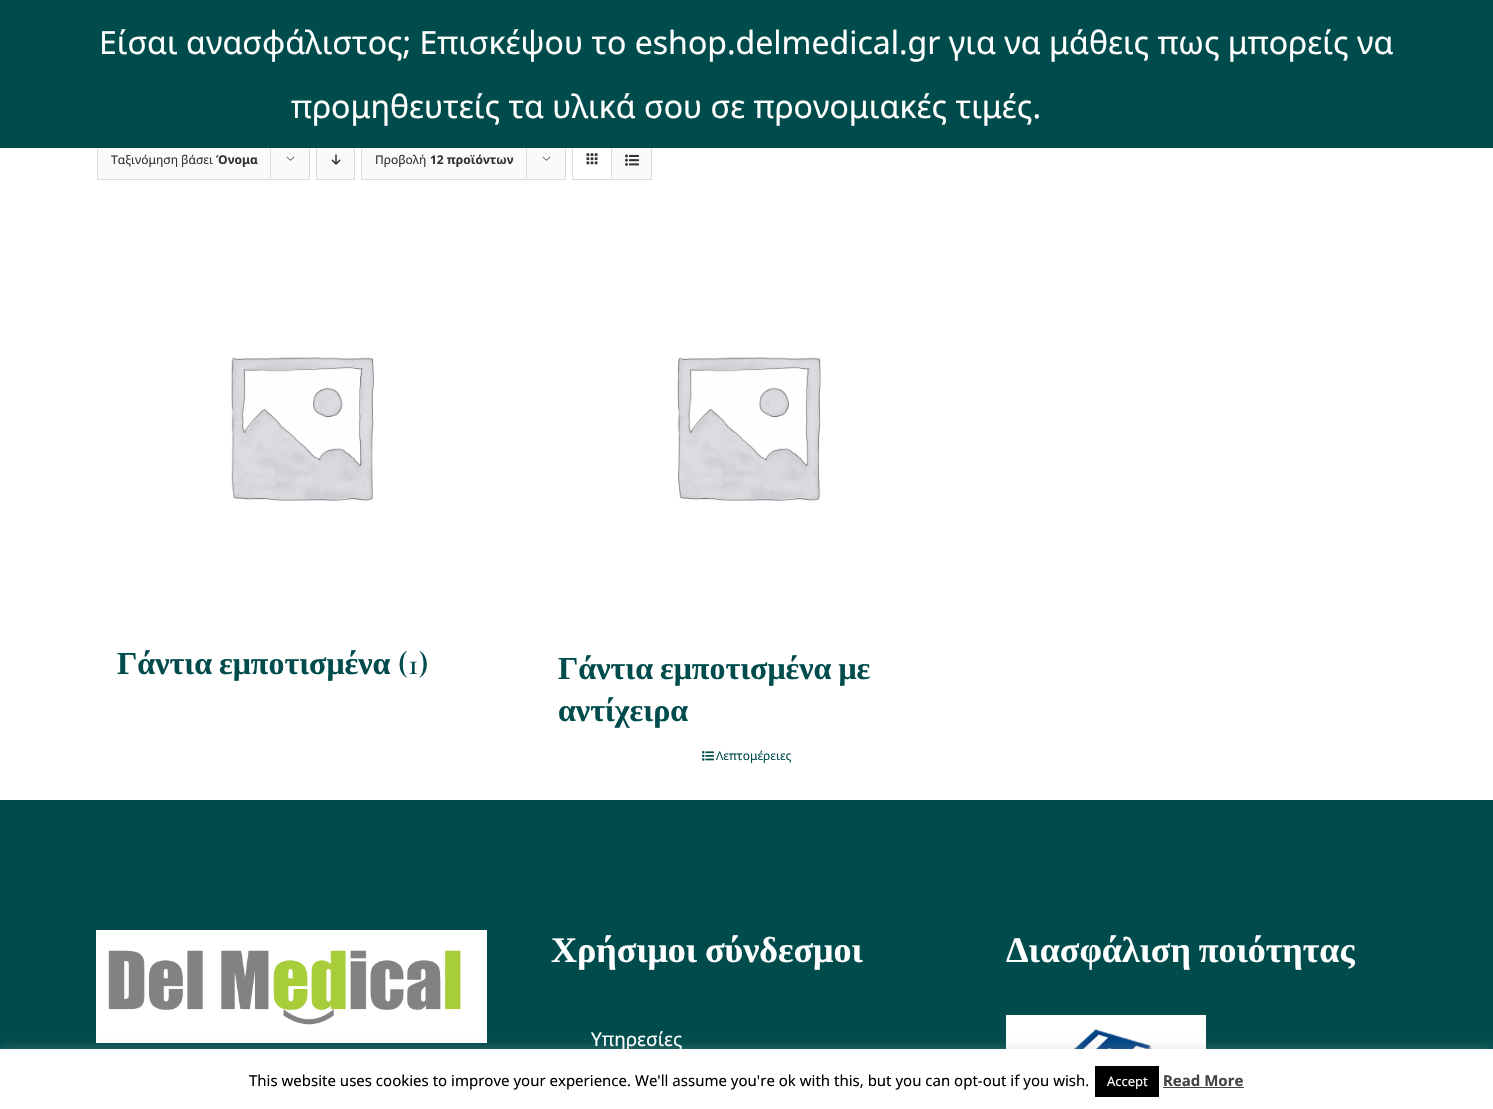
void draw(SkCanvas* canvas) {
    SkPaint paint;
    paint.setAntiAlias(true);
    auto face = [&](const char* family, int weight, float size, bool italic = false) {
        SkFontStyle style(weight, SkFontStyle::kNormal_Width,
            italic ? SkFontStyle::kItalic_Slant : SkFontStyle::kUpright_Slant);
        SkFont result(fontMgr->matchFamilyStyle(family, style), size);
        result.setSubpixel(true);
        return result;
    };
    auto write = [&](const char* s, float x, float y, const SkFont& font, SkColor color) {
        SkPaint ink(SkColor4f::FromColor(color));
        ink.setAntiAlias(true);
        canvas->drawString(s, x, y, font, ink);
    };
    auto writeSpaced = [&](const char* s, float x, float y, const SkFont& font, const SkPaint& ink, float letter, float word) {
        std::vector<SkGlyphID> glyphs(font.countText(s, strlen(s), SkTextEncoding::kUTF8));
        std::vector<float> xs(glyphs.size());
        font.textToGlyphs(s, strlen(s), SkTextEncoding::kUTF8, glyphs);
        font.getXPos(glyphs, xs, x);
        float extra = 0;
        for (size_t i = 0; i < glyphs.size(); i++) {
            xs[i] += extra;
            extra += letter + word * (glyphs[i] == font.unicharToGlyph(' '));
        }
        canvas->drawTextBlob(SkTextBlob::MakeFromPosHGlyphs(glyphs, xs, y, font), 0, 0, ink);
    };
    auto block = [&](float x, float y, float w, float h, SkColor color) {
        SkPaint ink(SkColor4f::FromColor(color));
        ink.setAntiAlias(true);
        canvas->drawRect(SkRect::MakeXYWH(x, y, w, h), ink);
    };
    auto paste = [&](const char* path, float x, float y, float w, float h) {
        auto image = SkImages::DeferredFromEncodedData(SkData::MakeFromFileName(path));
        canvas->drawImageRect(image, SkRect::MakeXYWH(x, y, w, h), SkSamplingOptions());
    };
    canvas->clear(SK_ColorWHITE);
    block(98, 148, 211, 31, SkColorSetRGB(251, 250, 249));
    paint.setStyle(SkPaint::kStroke_Style);
    paint.setStrokeWidth(1);
    paint.setColor(SkColorSetRGB(219, 219, 219));
    canvas->drawRect(SkRect::MakeXYWH(97.5f, 139.5f, 212, 40), paint);
    block(317, 148, 37, 31, SkColorSetRGB(251, 250, 249));
    canvas->drawRect(SkRect::MakeXYWH(316.5f, 139.5f, 38, 40), paint);
    block(362, 148, 203, 31, SkColorSetRGB(251, 250, 249));
    canvas->drawRect(SkRect::MakeXYWH(361.5f, 139.5f, 204, 40), paint);
    canvas->drawRect(SkRect::MakeXYWH(572.5f, 139.5f, 79, 40), paint);
    block(611, 140, 1, 39, SkColorSetRGB(219, 219, 219));
    block(0, 0, 1493, 148, SkColorSetRGB(0, 76, 76));
    auto kFont1 = face("Noto Sans", 400, 32);
    write("Είσαι ανασφάλιστος; Επισκέψου το eshop.delmedical.gr για να μάθεις πως μπορείς να", 99, 54, kFont1, SK_ColorWHITE);
    write("προμηθευτείς τα υλικά σου σε προνομιακές τιμές.", 291, 118, kFont1, SK_ColorWHITE);
    auto kFont2 = face("Noto Sans", 400, 12);
    write("Ταξινόμηση βάσει", 111, 164, kFont2, SkColorSetRGB(51, 51, 51));
    auto kFont3 = face("Noto Sans", 700, 12);
    write("Όνομα", 216, 164, kFont3, SkColorSetRGB(51, 51, 51));
    block(270, 148, 1, 30, SkColorSetRGB(219, 219, 219));
    paste("pic1.png", 286, 156, 9, 5);
    paste("pic2.png", 331, 154, 10, 11);
    write("Προβολή", 375, 164, kFont2, SkColorSetRGB(51, 51, 51));
    write("12 προϊόντων", 430, 164, kFont3, SkColorSetRGB(51, 51, 51));
    block(526, 148, 1, 30, SkColorSetRGB(219, 219, 219));
    paste("pic1.png", 542, 156, 9, 5);
    paste("pic3.png", 586, 153, 12, 12);
    block(612, 148, 39, 31, SkColorSetRGB(251, 250, 249));
    paste("pic4.png", 625, 154, 14, 12);
    paste("pic5.png", 231, 357, 143, 145);
    auto kFont4 = face("Liberation Serif", 700, 32);
    paint.setStyle(SkPaint::kFill_Style);
    paint.setColor(SkColorSetRGB(0, 76, 76));
    writeSpaced("Γάντια εμποτισμένα", 117, 674, kFont4, paint, 0, -1);
    auto kFont5 = face("Cormorant Garamond", 600, 32);
    write("(1)", 398, 674, kFont5, SkColorSetRGB(0, 76, 76));
    paste("pic6.png", 677, 357, 144, 145);
    writeSpaced("Γάντια εμποτισμένα με", 558, 679, kFont4, paint, 0, -1);
    write("αντίχειρα", 558, 721, kFont4, SkColorSetRGB(0, 76, 76));
    paste("pic7.png", 702, 751, 12, 10);
    write("Λεπτομέρειες", 716, 760, kFont2, SkColorSetRGB(0, 76, 76));
    block(0, 800, 1493, 249, SkColorSetRGB(0, 76, 76));
    paste("pic8.png", 96, 930, 391, 113);
    auto kFont6 = face("Liberation Serif", 700, 36);
    paint.setColor(SK_ColorWHITE);
    writeSpaced("Χρήσιμοι σύνδεσμοι", 551, 962, kFont6, paint, 0, -1);
    auto kFont7 = face("Noto Sans", 400, 19);
    write("Υπηρεσίες", 591, 1046, kFont7, SK_ColorWHITE);
    writeSpaced("Διασφάλιση ποιότητας", 1006, 962, kFont6, paint, 0, -1);
    paste("pic9.png", 1006, 1015, 200, 34);
    paint.setColor(SkColorSetARGB(77, 172, 171, 171));
    paint.setMaskFilter(SkMaskFilter::MakeBlur(kNormal_SkBlurStyle, 5));
    canvas->drawRect(SkRect::MakeXYWH(0, 1048, 1493, 60), paint);
    paint.setMaskFilter(nullptr);
    block(0, 1049, 1493, 60, SK_ColorWHITE);
    auto kFont8 = face("Noto Sans", 400, 15);
    write("This website uses cookies to improve your experience. We'll assume you're ok with this, but you can opt-out if you wish.", 249, 1086, kFont8, SK_ColorBLACK);
    block(1095, 1066, 64, 31, SK_ColorBLACK);
    auto kFont9 = face("Noto Sans", 400, 13);
    write("Accept", 1107, 1086, kFont9, SK_ColorWHITE);
    auto kFont10 = face("Noto Sans", 700, 15);
    write("Read More", 1163, 1086, kFont10, SkColorSetRGB(68, 68, 68));
    block(1163, 1087, 81, 1, SkColorSetRGB(68, 68, 68));
}
